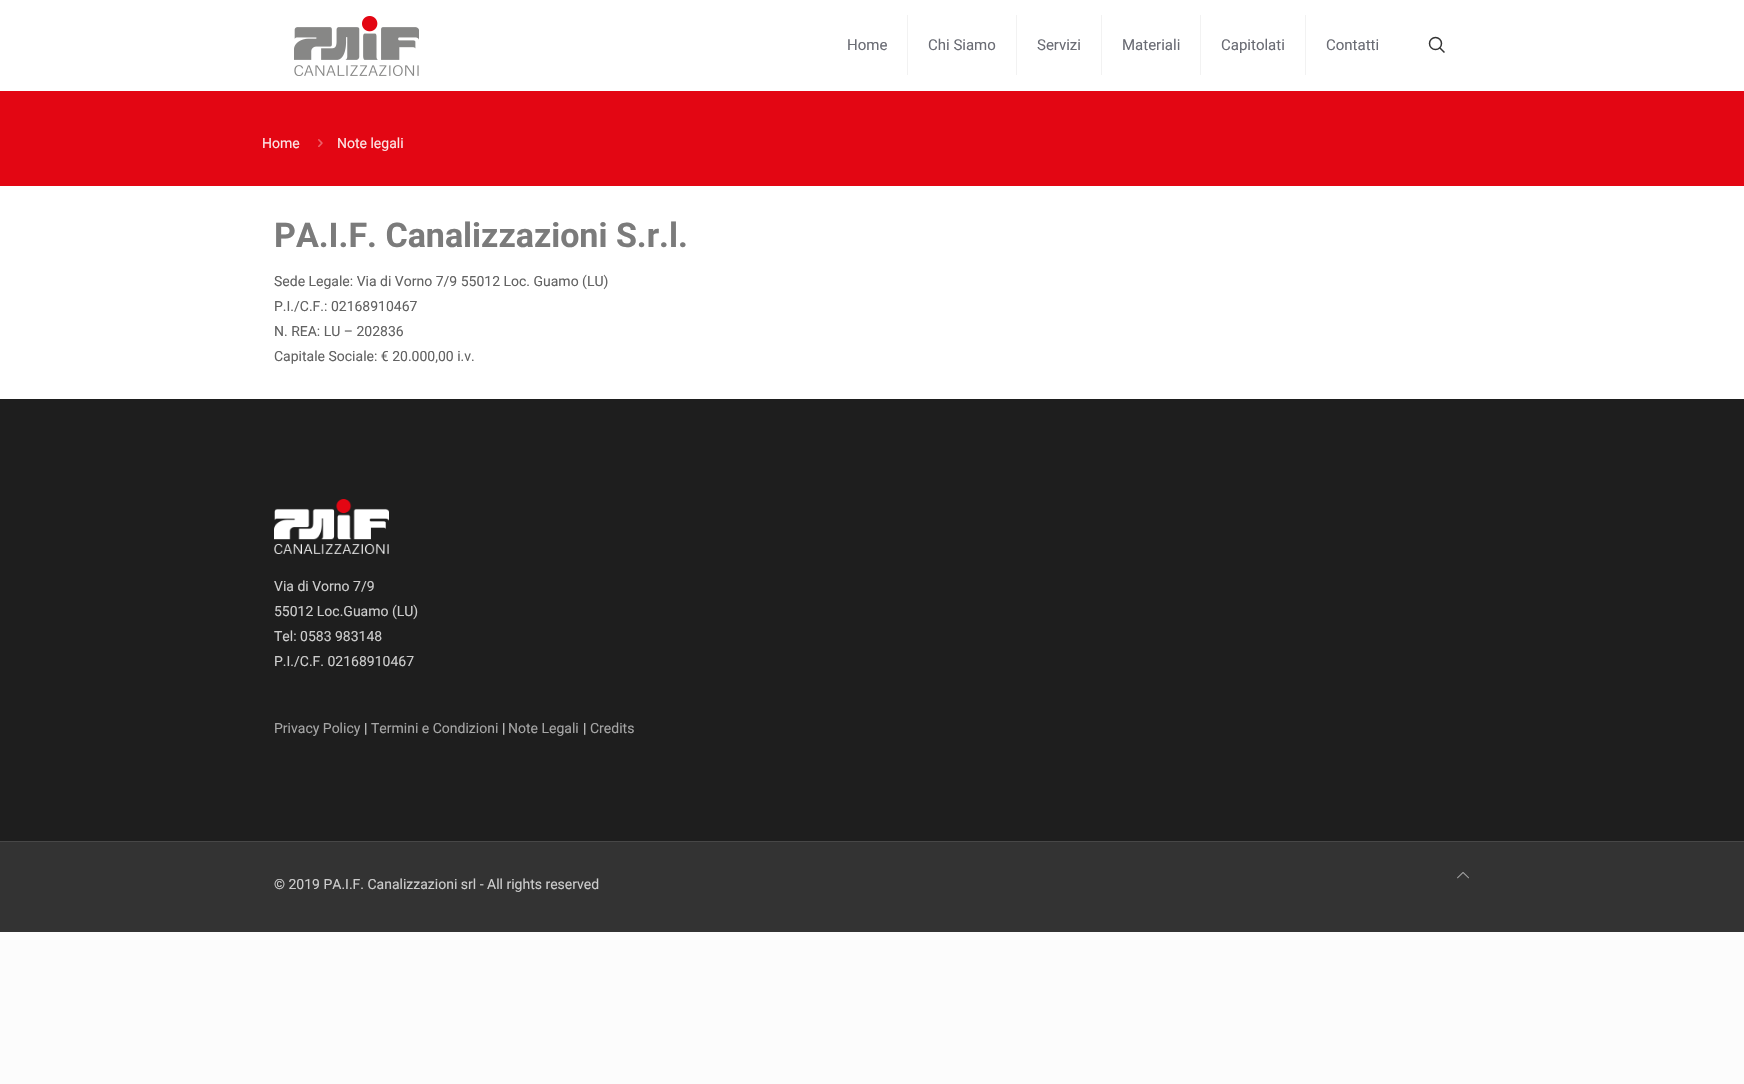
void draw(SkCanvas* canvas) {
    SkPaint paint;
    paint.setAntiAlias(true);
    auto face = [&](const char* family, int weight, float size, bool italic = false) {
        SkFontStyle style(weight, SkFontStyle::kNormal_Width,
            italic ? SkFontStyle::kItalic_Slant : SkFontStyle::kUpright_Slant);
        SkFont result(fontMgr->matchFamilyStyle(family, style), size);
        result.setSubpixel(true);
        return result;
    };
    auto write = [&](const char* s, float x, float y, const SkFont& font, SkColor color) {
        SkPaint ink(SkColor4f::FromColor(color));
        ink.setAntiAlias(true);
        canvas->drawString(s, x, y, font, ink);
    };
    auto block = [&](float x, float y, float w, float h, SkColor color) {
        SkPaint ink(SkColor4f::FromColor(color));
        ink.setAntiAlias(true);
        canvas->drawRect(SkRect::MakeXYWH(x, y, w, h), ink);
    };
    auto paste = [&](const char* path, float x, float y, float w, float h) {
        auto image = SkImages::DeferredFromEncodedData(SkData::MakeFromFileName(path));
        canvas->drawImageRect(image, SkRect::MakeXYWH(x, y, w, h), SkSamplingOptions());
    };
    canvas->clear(SkColorSetRGB(252, 252, 252));
    block(0, 186, 1744, 213, SK_ColorWHITE);
    block(0, 0, 1744, 91, SK_ColorWHITE);
    paste("pic1.png", 294, 16, 125, 60);
    block(907, 15, 1, 60, SkColorSetRGB(242, 242, 242));
    auto kFont1 = face("Roboto", 400, 15);
    write("Home", 847, 50, kFont1, SkColorSetRGB(106, 108, 116));
    block(1016, 15, 1, 60, SkColorSetRGB(242, 242, 242));
    write("Chi Siamo", 928, 50, kFont1, SkColorSetRGB(106, 108, 116));
    block(1101, 15, 1, 60, SkColorSetRGB(242, 242, 242));
    write("Servizi", 1037, 50, kFont1, SkColorSetRGB(106, 108, 116));
    block(1200, 15, 1, 60, SkColorSetRGB(242, 242, 242));
    write("Materiali", 1122, 50, kFont1, SkColorSetRGB(106, 108, 116));
    block(1305, 15, 1, 60, SkColorSetRGB(242, 242, 242));
    write("Capitolati", 1221, 50, kFont1, SkColorSetRGB(106, 108, 116));
    write("Contatti", 1326, 50, kFont1, SkColorSetRGB(106, 108, 116));
    paint.setStyle(SkPaint::kStroke_Style);
    paint.setStrokeWidth(1.5f);
    paint.setColor(SkColorSetRGB(51, 51, 51));
    canvas->drawCircle(1435.5f, 43.5f, 6, paint);
    canvas->drawPath(SkPathBuilder().moveTo(1439.5f, 47.5f).lineTo(1444.5f, 52.5f).detach(), paint);
    block(0, 91, 1744, 95, SkColorSetRGB(227, 6, 19));
    auto kFont2 = face("Roboto", 400, 14);
    write("Home", 262, 148, kFont2, SkColorSetRGB(252, 230, 231));
    paste("pic2.png", 318, 139, 5, 8);
    write("Note legali", 337, 148, kFont2, SkColorSetRGB(252, 230, 231));
    auto kFont3 = face("Roboto", 700, 34);
    write("PA.I.F. Canalizzazioni S.r.l.", 274, 247, kFont3, SkColorSetRGB(123, 123, 123));
    write("Sede Legale: Via di Vorno 7/9 55012 Loc. Guamo (LU)", 274, 286, kFont2, SkColorSetRGB(98, 98, 98));
    write("P.I./C.F.: 02168910467", 274, 311, kFont2, SkColorSetRGB(98, 98, 98));
    write("N. REA: LU – 202836", 274, 336, kFont2, SkColorSetRGB(98, 98, 98));
    write("Capitale Sociale: € 20.000,00 i.v.", 274, 361, kFont2, SkColorSetRGB(98, 98, 98));
    block(0, 399, 1744, 442, SkColorSetRGB(30, 30, 30));
    paste("pic3.png", 274, 499, 115, 55);
    write("Via di Vorno 7/9", 274, 591, kFont2, SkColorSetRGB(204, 204, 204));
    write("55012 Loc.Guamo (LU)", 274, 616, kFont2, SkColorSetRGB(204, 204, 204));
    write("Tel: 0583 983148", 274, 641, kFont2, SkColorSetRGB(204, 204, 204));
    write("P.I./C.F. 02168910467", 274, 666, kFont2, SkColorSetRGB(204, 204, 204));
    write("Privacy Policy", 274, 733, kFont2, SkColorSetRGB(165, 165, 165));
    write("|", 364, 733, kFont2, SkColorSetRGB(204, 204, 204));
    write("Termini e Condizioni", 371, 733, kFont2, SkColorSetRGB(165, 165, 165));
    write("|", 502, 733, kFont2, SkColorSetRGB(204, 204, 204));
    write("Note Legali", 508, 733, kFont2, SkColorSetRGB(165, 165, 165));
    write("|", 583, 733, kFont2, SkColorSetRGB(204, 204, 204));
    write("Credits", 590, 733, kFont2, SkColorSetRGB(165, 165, 165));
    block(0, 842, 1744, 90, SkColorSetRGB(51, 51, 51));
    block(0, 841, 1744, 1, SkColorSetRGB(71, 71, 71));
    paste("pic4.png", 1457, 872, 12, 7);
    write("© 2019 PA.I.F. Canalizzazioni srl - All rights reserved", 274, 889, kFont2, SkColorSetRGB(204, 204, 204));
}
